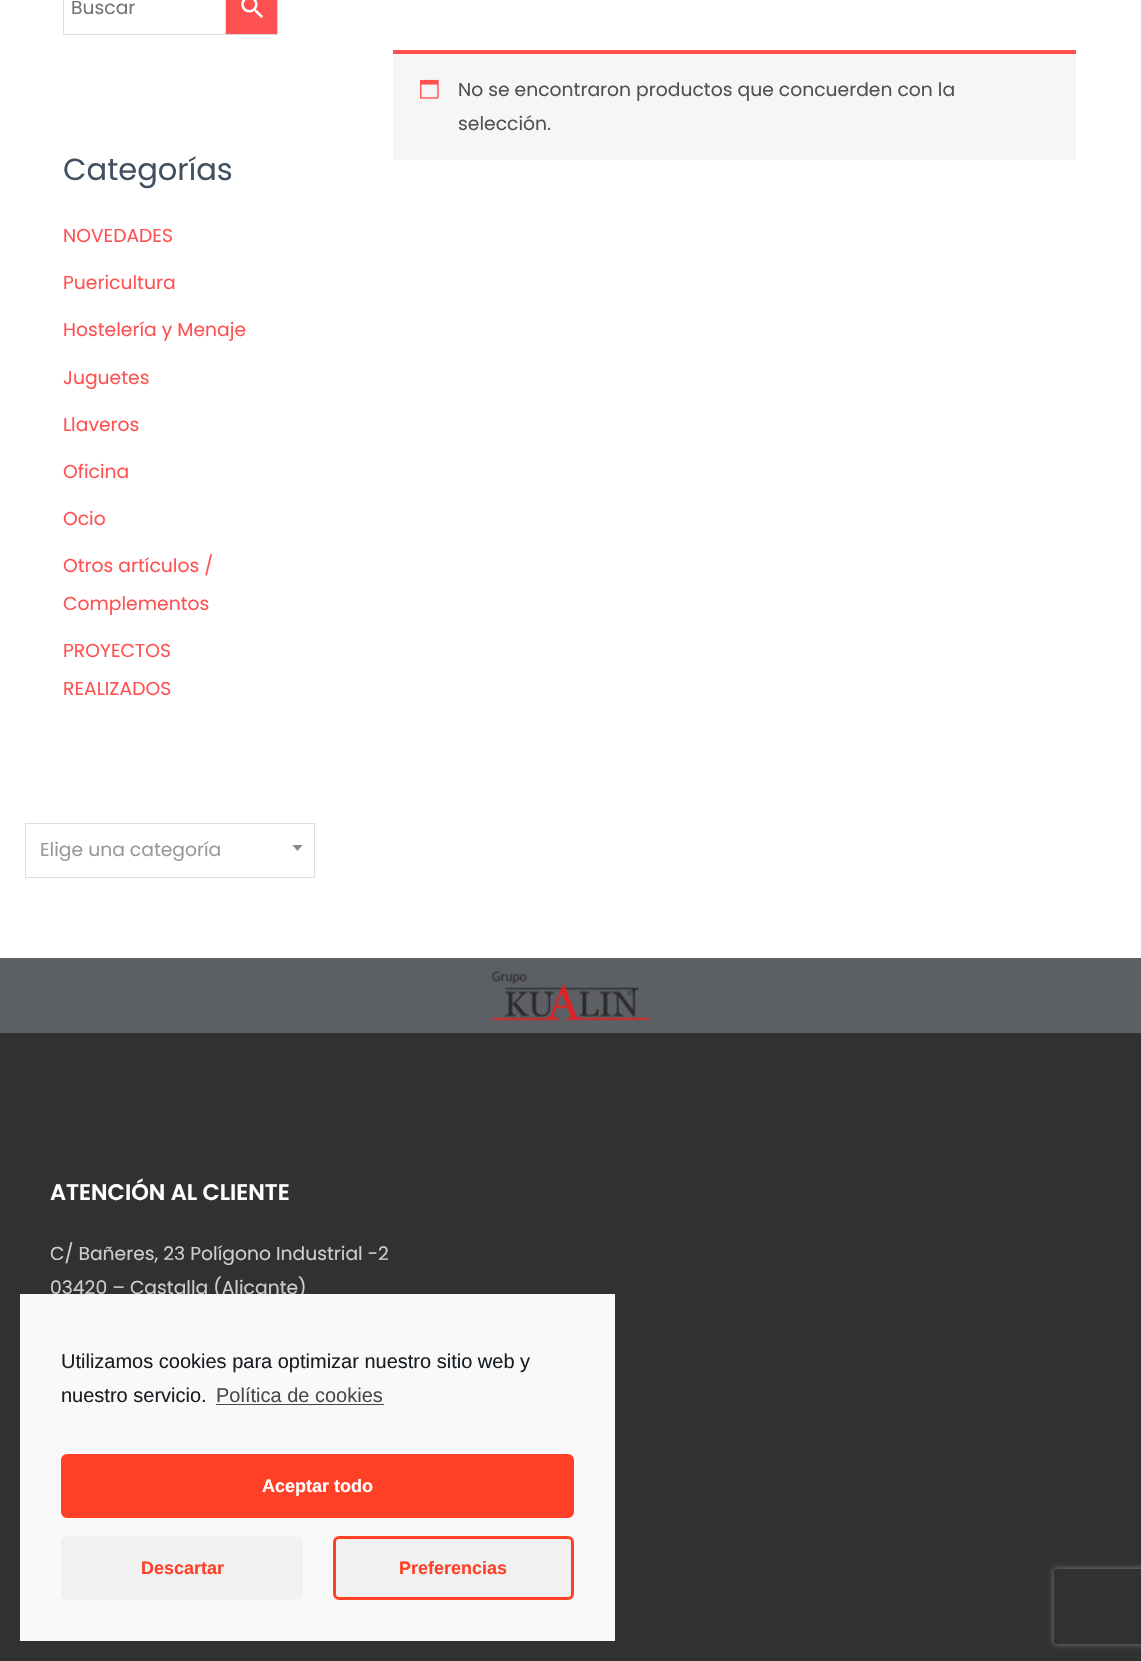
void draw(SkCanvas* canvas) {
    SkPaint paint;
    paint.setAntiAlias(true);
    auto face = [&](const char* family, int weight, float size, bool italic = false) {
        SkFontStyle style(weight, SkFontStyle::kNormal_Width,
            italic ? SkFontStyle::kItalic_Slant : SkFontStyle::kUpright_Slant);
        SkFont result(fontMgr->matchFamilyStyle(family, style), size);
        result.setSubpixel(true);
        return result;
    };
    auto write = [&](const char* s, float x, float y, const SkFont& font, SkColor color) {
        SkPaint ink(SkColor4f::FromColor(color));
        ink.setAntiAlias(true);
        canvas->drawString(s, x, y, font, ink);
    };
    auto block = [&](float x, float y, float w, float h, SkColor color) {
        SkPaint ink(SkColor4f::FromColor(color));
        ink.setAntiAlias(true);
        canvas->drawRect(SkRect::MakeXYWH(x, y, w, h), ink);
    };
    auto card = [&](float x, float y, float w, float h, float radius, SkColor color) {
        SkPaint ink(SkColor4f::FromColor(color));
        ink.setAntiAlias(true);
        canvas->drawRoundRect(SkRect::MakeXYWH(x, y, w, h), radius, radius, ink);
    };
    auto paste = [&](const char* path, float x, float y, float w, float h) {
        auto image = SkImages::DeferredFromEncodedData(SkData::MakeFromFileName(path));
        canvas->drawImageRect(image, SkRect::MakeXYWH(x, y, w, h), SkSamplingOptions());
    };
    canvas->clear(SK_ColorWHITE);
    paint.setColor(SkColorSetRGB(255, 81, 81));
    canvas->drawRect(SkRect::MakeXYWH(225.5f, -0.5f, 52, 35), paint);
    paint.setStyle(SkPaint::kStroke_Style);
    paint.setStrokeWidth(1);
    paint.setColor(SkColorSetRGB(216, 216, 216));
    canvas->drawRect(SkRect::MakeXYWH(225.5f, -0.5f, 52, 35), paint);
    paint.setColor(SkColorSetRGB(221, 221, 221));
    canvas->drawRect(SkRect::MakeXYWH(63.5f, -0.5f, 162, 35), paint);
    auto kFont1 = face("Poppins", 400, 18.75f);
    write("Buscar", 71, 14, kFont1, SkColorSetRGB(117, 117, 117));
    paste("pic1.png", 241, 0, 22, 18);
    auto kFont2 = face("Poppins", 400, 30.5f);
    write("Categorías", 63, 180, kFont2, SkColorSetRGB(65, 81, 97));
    write("NOVEDADES", 63, 242, kFont1, SkColorSetRGB(255, 81, 81));
    write("Puericultura", 63, 289, kFont1, SkColorSetRGB(255, 81, 81));
    write("Hostelería y Menaje", 63, 336, kFont1, SkColorSetRGB(255, 81, 81));
    write("Juguetes", 63, 384, kFont1, SkColorSetRGB(255, 81, 81));
    write("Llaveros", 63, 431, kFont1, SkColorSetRGB(255, 81, 81));
    write("Oficina", 63, 478, kFont1, SkColorSetRGB(255, 81, 81));
    write("Ocio", 63, 525, kFont1, SkColorSetRGB(255, 81, 81));
    write("Otros artículos /", 63, 572, kFont1, SkColorSetRGB(255, 81, 81));
    write("Complementos", 63, 610, kFont1, SkColorSetRGB(255, 81, 81));
    write("PROYECTOS", 63, 657, kFont1, SkColorSetRGB(255, 81, 81));
    write("REALIZADOS", 63, 695, kFont1, SkColorSetRGB(255, 81, 81));
    canvas->drawRect(SkRect::MakeXYWH(25.5f, 823.5f, 289, 54), paint);
    write("Elige una categoría", 40, 856, kFont1, SkColorSetRGB(153, 153, 153));
    paint.setStyle(SkPaint::kFill_Style);
    paint.setColor(SkColorSetRGB(136, 136, 136));
    canvas->drawPath(SkPathBuilder().moveTo(292.5f, 845).lineTo(302.5f, 845).lineTo(297.5f, 851).close().detach(), paint);
    block(393, 54, 683, 106, SkColorSetRGB(247, 246, 247));
    block(393, 50, 683, 4, SkColorSetRGB(255, 81, 81));
    paste("pic2.png", 420, 79, 19, 20);
    write("No se encontraron productos que concuerden con la", 458, 96, kFont1, SkColorSetRGB(81, 81, 81));
    write("selección.", 458, 130, kFont1, SkColorSetRGB(81, 81, 81));
    block(0, 958, 1141, 75, SkColorSetRGB(92, 95, 99));
    paste("pic3.png", 491, 971, 159, 50);
    block(0, 1033, 1141, 628, SkColorSetRGB(49, 49, 49));
    auto kFont3 = face("Poppins", 600, 22.5f);
    write("ATENCIÓN AL CLIENTE", 50, 1200, kFont3, SK_ColorWHITE);
    write("C/ Bañeres, 23 Polígono Industrial -2", 50, 1260, kFont1, SkColorSetRGB(206, 206, 206));
    write("03420 – Castalla (Alicante)", 50, 1294, kFont1, SkColorSetRGB(206, 206, 206));
    block(20, 1294, 595, 347, SkColorSetRGB(249, 249, 249));
    auto kFont4 = face("Liberation Sans", 400, 20);
    write("Utilizamos cookies para optimizar nuestro sitio web y", 61, 1368, kFont4, SkColorSetRGB(25, 30, 35));
    write("nuestro servicio.", 61, 1402, kFont4, SkColorSetRGB(25, 30, 35));
    write("Política de cookies", 216, 1402, kFont4, SkColorSetRGB(70, 74, 78));
    block(216, 1404, 168, 1, SkColorSetRGB(70, 74, 78));
    paint.setColor(SkColorSetRGB(255, 63, 38));
    canvas->drawRoundRect(SkRect::MakeXYWH(62.5f, 1455.5f, 510, 61), 4.5f, 4.5f, paint);
    paint.setStyle(SkPaint::kStroke_Style);
    paint.setStrokeWidth(3);
    canvas->drawRoundRect(SkRect::MakeXYWH(62.5f, 1455.5f, 510, 61), 4.5f, 4.5f, paint);
    auto kFont5 = face("Liberation Sans", 700, 18);
    write("Aceptar todo", 262, 1492, kFont5, SK_ColorWHITE);
    card(61, 1536, 242, 64, 6, SkColorSetRGB(241, 241, 241));
    write("Descartar", 141, 1574, kFont5, SkColorSetRGB(255, 63, 38));
    paint.setStyle(SkPaint::kFill_Style);
    paint.setColor(SkColorSetRGB(241, 241, 241));
    canvas->drawRoundRect(SkRect::MakeXYWH(334.5f, 1537.5f, 238, 61), 4.5f, 4.5f, paint);
    paint.setStyle(SkPaint::kStroke_Style);
    paint.setColor(SkColorSetRGB(255, 63, 38));
    canvas->drawRoundRect(SkRect::MakeXYWH(334.5f, 1537.5f, 238, 61), 4.5f, 4.5f, paint);
    write("Preferencias", 399, 1574, kFont5, SkColorSetRGB(255, 63, 38));
    canvas->save();
    canvas->clipPath(SkPathBuilder(SkPathFillType::kEvenOdd).moveTo(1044, 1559).lineTo(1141, 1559).lineTo(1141, 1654).lineTo(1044, 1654).close().moveTo(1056.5f, 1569).lineTo(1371.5f, 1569).cubicTo(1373, 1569, 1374, 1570, 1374, 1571.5f).lineTo(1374, 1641.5f).cubicTo(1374, 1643, 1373, 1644, 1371.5f, 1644).lineTo(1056.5f, 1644).cubicTo(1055, 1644, 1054, 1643, 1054, 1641.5f).lineTo(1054, 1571.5f).cubicTo(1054, 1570, 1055, 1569, 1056.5f, 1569).close().detach(), true);
    paint.setStyle(SkPaint::kFill_Style);
    paint.setColor(SkColorSetRGB(128, 128, 128));
    paint.setMaskFilter(SkMaskFilter::MakeBlur(kNormal_SkBlurStyle, 3));
    canvas->drawRoundRect(SkRect::MakeXYWH(1054, 1569, 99, 75), 2.5f, 2.5f, paint);
    paint.setMaskFilter(nullptr);
    canvas->restore();
}
